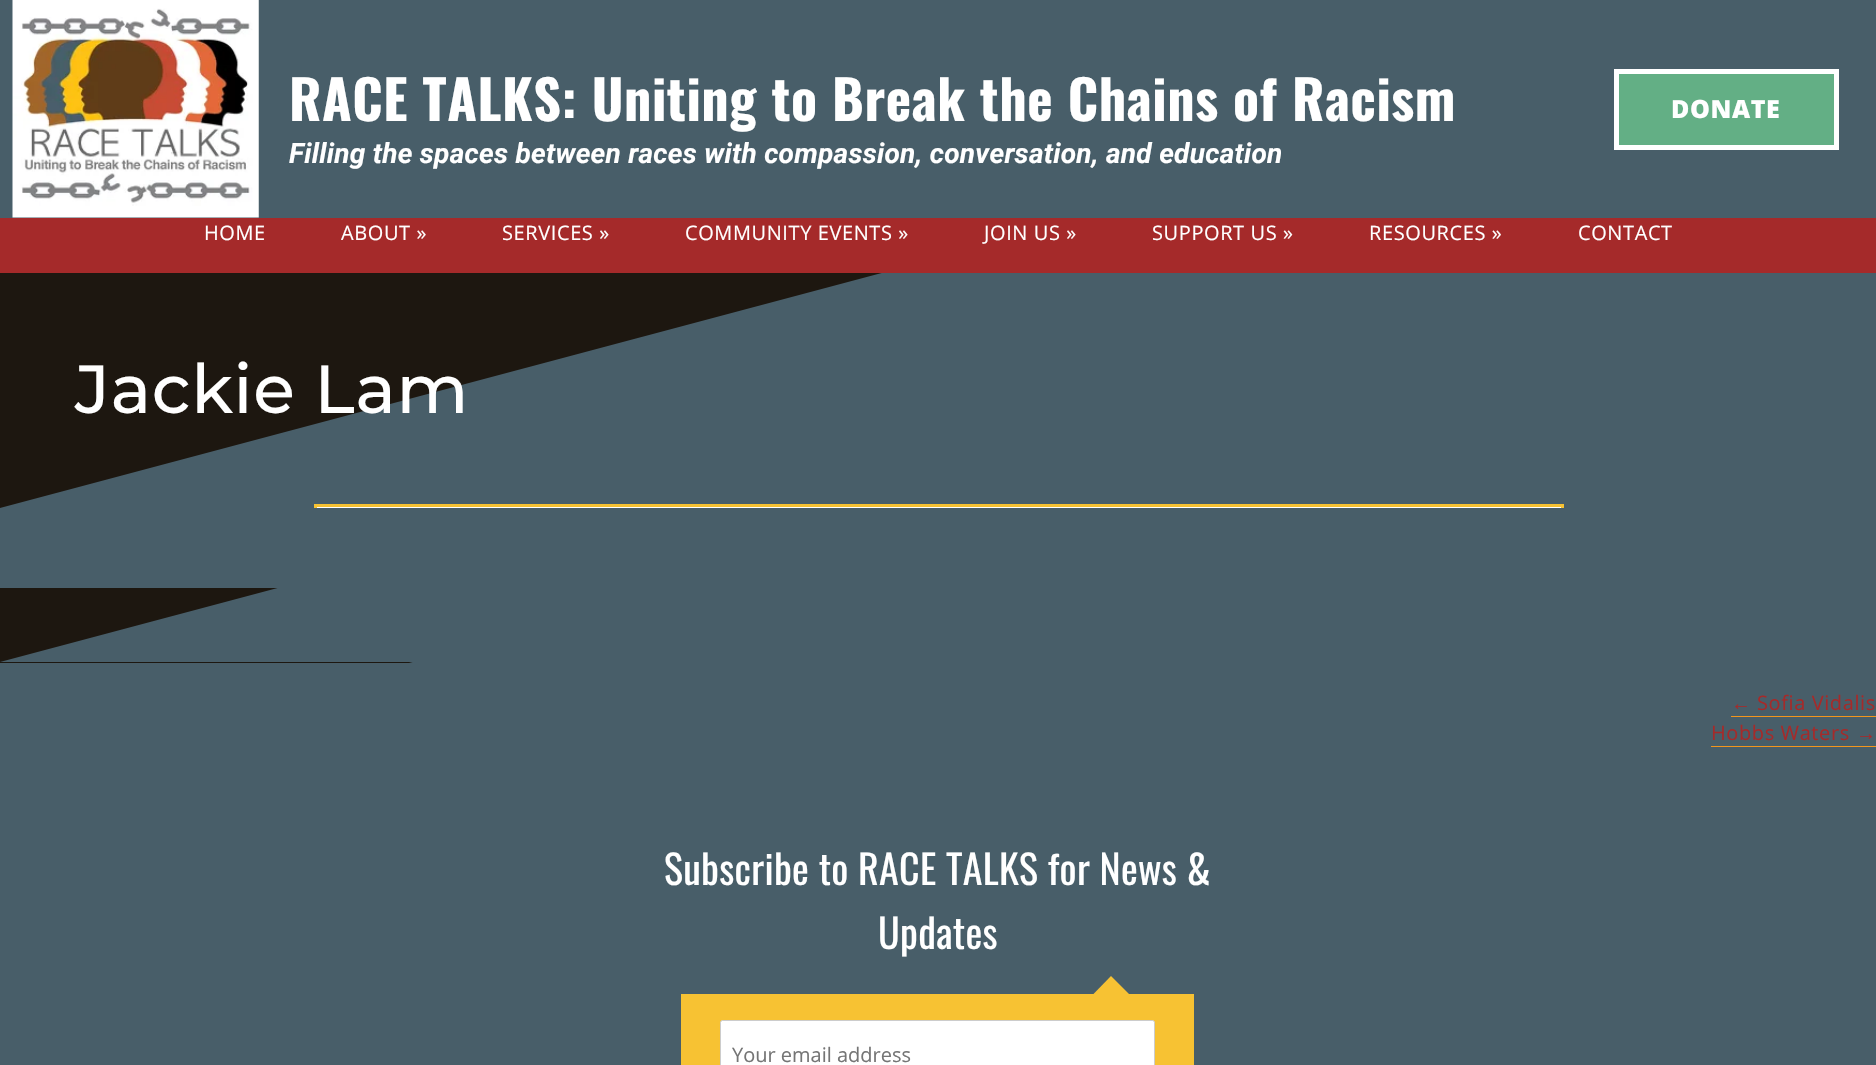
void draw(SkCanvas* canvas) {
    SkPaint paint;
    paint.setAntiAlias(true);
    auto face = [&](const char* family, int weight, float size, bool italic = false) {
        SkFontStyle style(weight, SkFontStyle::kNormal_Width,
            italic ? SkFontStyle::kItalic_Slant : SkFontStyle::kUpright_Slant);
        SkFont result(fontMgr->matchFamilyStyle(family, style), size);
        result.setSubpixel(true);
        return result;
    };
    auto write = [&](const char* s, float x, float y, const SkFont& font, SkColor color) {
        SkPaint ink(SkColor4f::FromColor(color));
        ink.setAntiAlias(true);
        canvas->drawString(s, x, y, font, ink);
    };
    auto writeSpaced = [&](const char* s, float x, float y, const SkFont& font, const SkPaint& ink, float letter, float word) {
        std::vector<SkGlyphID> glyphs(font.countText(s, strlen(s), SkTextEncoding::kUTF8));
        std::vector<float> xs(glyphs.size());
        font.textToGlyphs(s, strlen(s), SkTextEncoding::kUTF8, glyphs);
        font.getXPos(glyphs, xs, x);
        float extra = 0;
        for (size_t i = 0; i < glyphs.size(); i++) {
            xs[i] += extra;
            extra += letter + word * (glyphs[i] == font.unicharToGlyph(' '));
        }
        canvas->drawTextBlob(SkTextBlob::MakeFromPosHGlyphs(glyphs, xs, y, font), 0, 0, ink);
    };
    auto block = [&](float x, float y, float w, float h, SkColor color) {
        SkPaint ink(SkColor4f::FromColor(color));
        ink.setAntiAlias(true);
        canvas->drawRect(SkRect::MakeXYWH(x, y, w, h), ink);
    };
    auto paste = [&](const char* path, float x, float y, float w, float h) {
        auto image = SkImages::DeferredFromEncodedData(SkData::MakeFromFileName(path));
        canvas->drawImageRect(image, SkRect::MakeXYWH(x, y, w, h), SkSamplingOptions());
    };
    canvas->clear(SkColorSetRGB(29, 23, 16));
    paint.setColor(SkColorSetRGB(72, 94, 105));
    canvas->drawPath(SkPathBuilder().moveTo(1876, 508).lineTo(0, 508).lineTo(1876, 8).close().detach(), paint);
    canvas->drawPath(SkPathBuilder().moveTo(1876, 662).lineTo(0, 662).lineTo(1876, 162).close().detach(), paint);
    block(0, 0, 1876, 218, SkColorSetRGB(72, 94, 105));
    paste("pic1.png", 12, 0, 247, 218);
    auto kFont1 = face("Oswald", 700, 54);
    paint.setColor(SK_ColorWHITE);
    writeSpaced("RACE TALKS: Uniting to Break the Chains of Racism", 289, 121, kFont1, paint, 0.6f, 0);
    auto kFont2 = face("Roboto", 700, 28, true);
    writeSpaced("Filling the spaces between races with compassion, conversation, and education", 289, 163, kFont2, paint, 0.3f, 0);
    paint.setColor(SkColorSetRGB(72, 94, 105));
    canvas->drawPath(SkPathBuilder().moveTo(1876, 772).lineTo(0, 772).lineTo(1876, 272).close().detach(), paint);
    block(0, 218, 1876, 55, SkColorSetRGB(165, 42, 42));
    paint.setColor(SkColorSetRGB(99, 175, 133));
    canvas->drawRect(SkRect::MakeXYWH(1616.5f, 71.5f, 220, 76), paint);
    paint.setStyle(SkPaint::kStroke_Style);
    paint.setStrokeWidth(5);
    paint.setColor(SK_ColorWHITE);
    canvas->drawRect(SkRect::MakeXYWH(1616.5f, 71.5f, 220, 76), paint);
    auto kFont3 = face("Open Sans", 800, 25);
    paint.setStyle(SkPaint::kFill_Style);
    writeSpaced("DONATE", 1671, 118, kFont3, paint, 0.6f, 0);
    auto kFont4 = face("Open Sans", 400, 20);
    writeSpaced("HOME", 204, 240, kFont4, paint, 0.6f, 0);
    writeSpaced("ABOUT »", 341, 240, kFont4, paint, 0.6f, 0);
    writeSpaced("SERVICES »", 502, 240, kFont4, paint, 0.6f, 0);
    writeSpaced("COMMUNITY EVENTS »", 685, 240, kFont4, paint, 0.6f, 0);
    writeSpaced("JOIN US »", 984, 240, kFont4, paint, 0.6f, 0);
    writeSpaced("SUPPORT US »", 1152, 240, kFont4, paint, 0.6f, 0);
    writeSpaced("RESOURCES »", 1369, 240, kFont4, paint, 0.6f, 0);
    writeSpaced("CONTACT", 1578, 240, kFont4, paint, 0.6f, 0);
    block(0, 508, 578, 80, SkColorSetRGB(72, 94, 105));
    auto kFont5 = face("Montserrat", 500, 68);
    writeSpaced("Jackie Lam", 75, 413, kFont5, paint, 0.6f, 0);
    block(314, 507, 1250, 1, SK_ColorWHITE);
    block(314, 504, 1250, 3, SkColorSetRGB(247, 194, 51));
    block(1561, 504, 3, 4, SkColorSetRGB(247, 194, 51));
    block(314, 504, 3, 4, SkColorSetRGB(247, 194, 51));
    block(0, 663, 1876, 402, SkColorSetRGB(72, 94, 105));
    auto kFont6 = face("Liberation Sans", 400, 20);
    paint.setColor(SkColorSetRGB(165, 42, 42));
    writeSpaced("←", 1731, 710, kFont6, paint, 0.6f, 0);
    block(1731, 716, 145, 1, SkColorSetRGB(243, 150, 28));
    writeSpaced("Sofia Vidalis", 1757, 710, kFont4, paint, 0.6f, 0);
    writeSpaced("Hobbs Waters", 1711, 740, kFont4, paint, 0.6f, 0);
    writeSpaced("→", 1856, 740, kFont6, paint, 0.6f, 0);
    block(1711, 746, 165, 1, SkColorSetRGB(243, 150, 28));
    auto kFont7 = face("Oswald", 400, 40);
    paint.setColor(SK_ColorWHITE);
    writeSpaced("Subscribe to RACE TALKS for News &", 664, 885, kFont7, paint, 0.3f, 0);
    writeSpaced("Updates", 878, 949, kFont7, paint, 0.3f, 0);
    block(681, 994, 513, 71, SkColorSetRGB(247, 194, 51));
    paint.setColor(SkColorSetRGB(247, 194, 51));
    canvas->drawPath(SkPathBuilder().moveTo(1130, 995).lineTo(1092.5f, 995).lineTo(1111, 976).close().detach(), paint);
    paint.setColor(SK_ColorWHITE);
    canvas->drawRoundRect(SkRect::MakeXYWH(720.5f, 1020.5f, 434, 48), 2, 2, paint);
    paint.setStyle(SkPaint::kStroke_Style);
    paint.setStrokeWidth(1);
    paint.setColor(SkColorSetRGB(204, 204, 204));
    canvas->drawRoundRect(SkRect::MakeXYWH(720.5f, 1020.5f, 434, 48), 2, 2, paint);
    write("Your email address", 732, 1062, kFont4, SkColorSetRGB(117, 117, 117));
}
